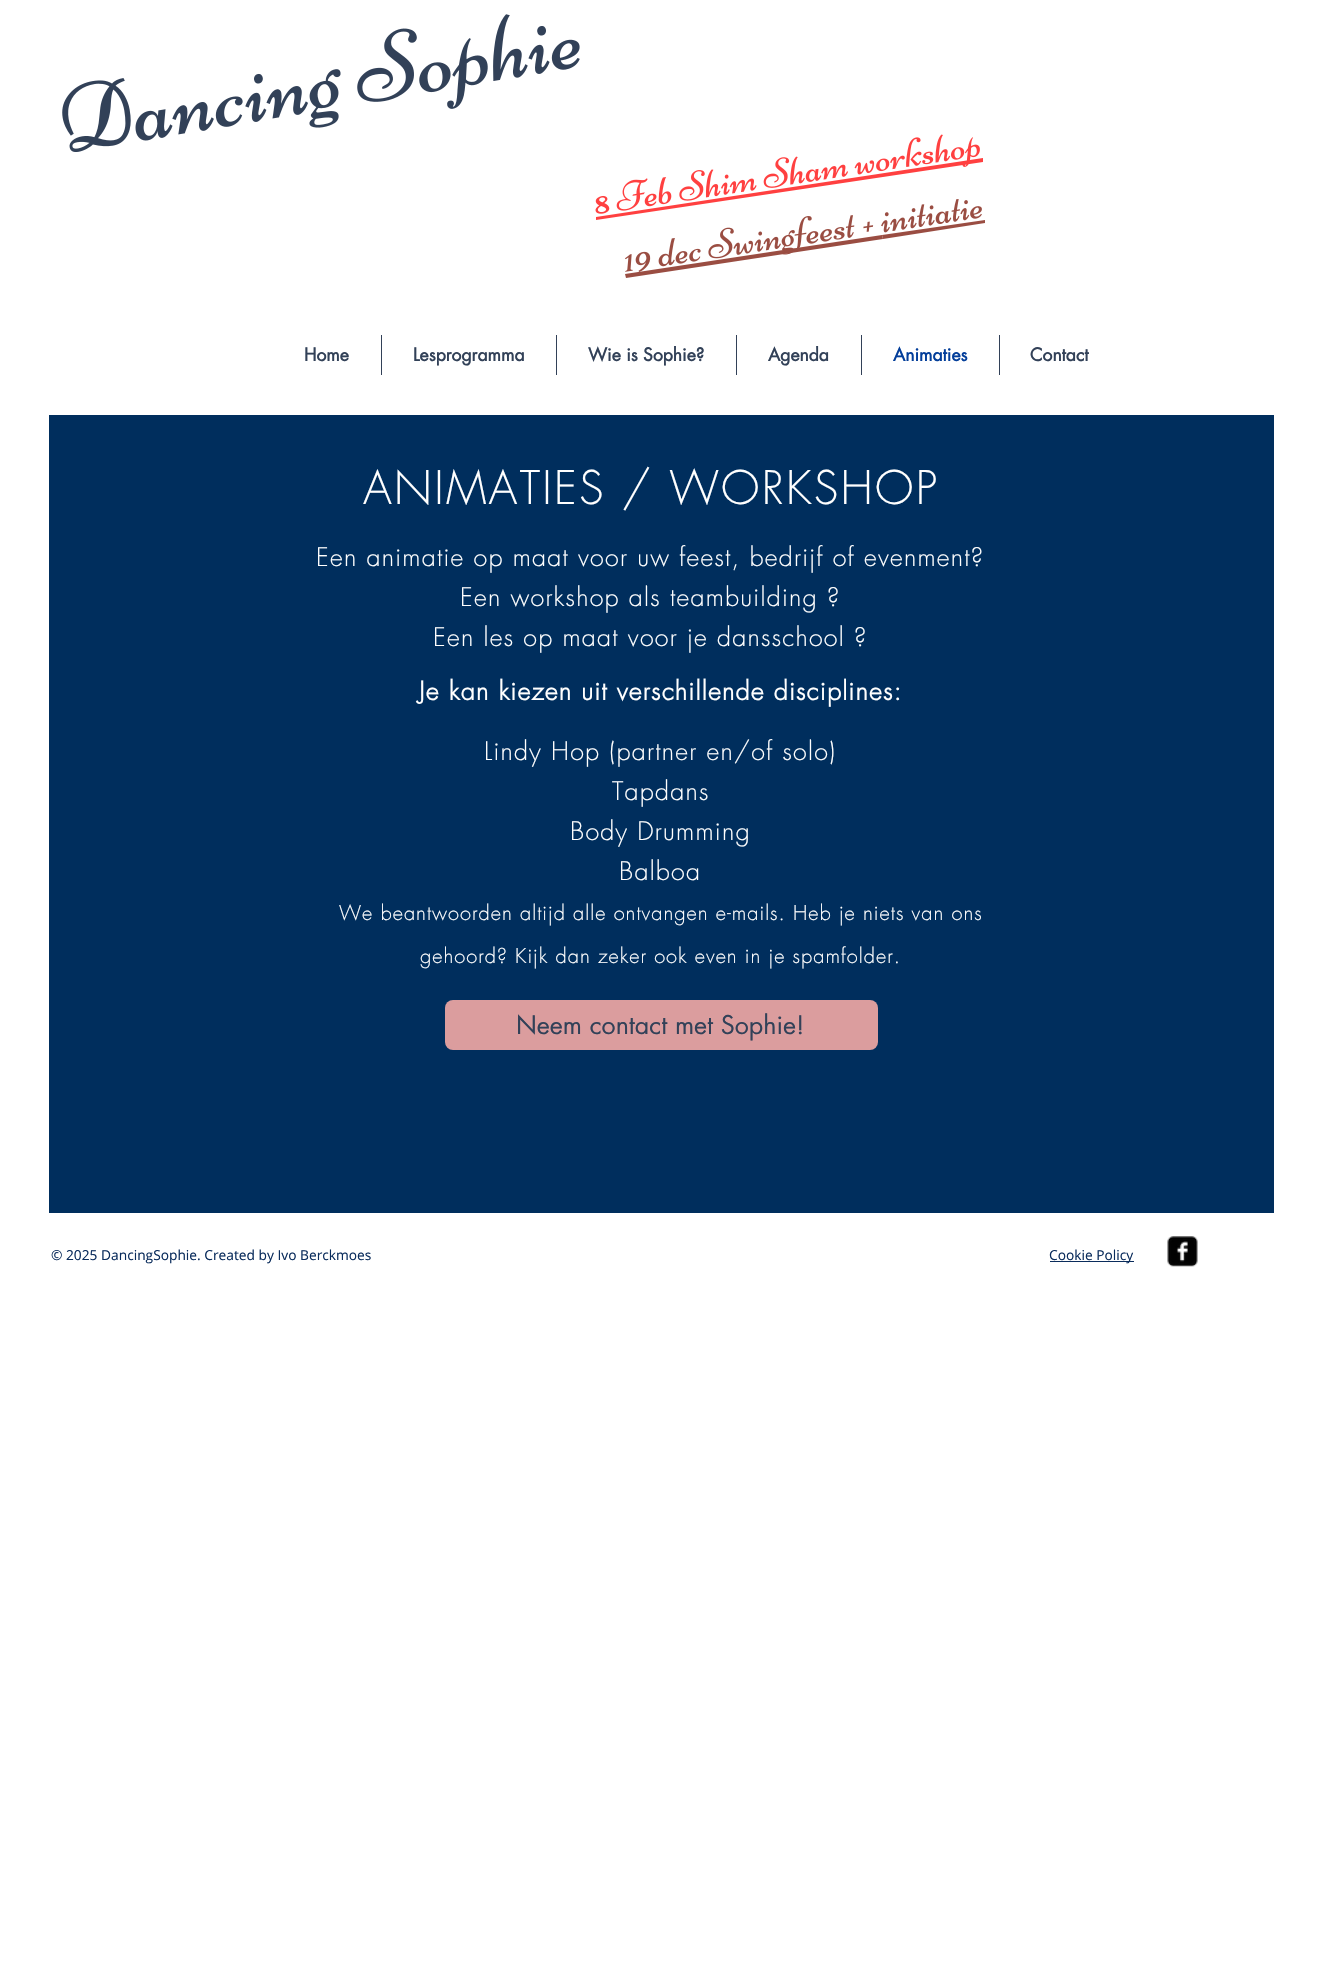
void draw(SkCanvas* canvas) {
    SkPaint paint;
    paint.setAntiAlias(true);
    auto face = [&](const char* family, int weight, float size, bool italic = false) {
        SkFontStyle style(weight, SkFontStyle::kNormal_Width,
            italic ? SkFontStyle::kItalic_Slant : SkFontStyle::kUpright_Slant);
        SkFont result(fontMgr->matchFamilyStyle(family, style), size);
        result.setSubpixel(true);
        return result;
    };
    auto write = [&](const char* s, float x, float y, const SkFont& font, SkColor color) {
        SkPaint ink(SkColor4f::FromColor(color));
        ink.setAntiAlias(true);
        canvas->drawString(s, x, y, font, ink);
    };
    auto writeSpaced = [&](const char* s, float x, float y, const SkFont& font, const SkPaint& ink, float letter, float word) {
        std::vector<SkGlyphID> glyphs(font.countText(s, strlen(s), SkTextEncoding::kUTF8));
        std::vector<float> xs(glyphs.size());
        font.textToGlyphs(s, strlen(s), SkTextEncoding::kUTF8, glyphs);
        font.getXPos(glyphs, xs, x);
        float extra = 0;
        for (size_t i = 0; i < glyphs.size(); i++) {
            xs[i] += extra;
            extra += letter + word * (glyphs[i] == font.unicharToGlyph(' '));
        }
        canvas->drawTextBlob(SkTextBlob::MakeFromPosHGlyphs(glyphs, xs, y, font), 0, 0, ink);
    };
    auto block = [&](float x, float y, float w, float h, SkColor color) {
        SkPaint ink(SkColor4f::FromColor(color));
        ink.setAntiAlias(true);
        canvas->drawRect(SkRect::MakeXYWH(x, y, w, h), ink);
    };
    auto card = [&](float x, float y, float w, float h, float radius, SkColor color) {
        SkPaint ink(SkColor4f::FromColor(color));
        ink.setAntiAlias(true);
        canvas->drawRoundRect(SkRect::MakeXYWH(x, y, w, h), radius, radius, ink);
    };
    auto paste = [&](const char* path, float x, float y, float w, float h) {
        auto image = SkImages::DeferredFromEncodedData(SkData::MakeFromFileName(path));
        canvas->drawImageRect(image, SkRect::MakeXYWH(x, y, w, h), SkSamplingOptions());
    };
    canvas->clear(SK_ColorWHITE);
    paste("pic1.png", 62, 14, 518, 138);
    paint.setColor(SkColorSetRGB(255, 64, 64));
    canvas->drawPath(SkPathBuilder().moveTo(596, 217).lineTo(983, 158).lineTo(983, 162).lineTo(596, 220).close().detach(), paint);
    paste("pic2.png", 595, 134, 385, 80);
    paint.setColor(SkColorSetRGB(154, 77, 66));
    canvas->drawPath(SkPathBuilder().moveTo(625, 274).lineTo(882, 235).lineTo(883, 239).lineTo(626, 278).close().detach(), paint);
    paste("pic3.png", 625, 215, 249, 57);
    canvas->drawPath(SkPathBuilder().moveTo(882, 235).lineTo(985, 220).lineTo(985, 223).lineTo(883, 239).close().detach(), paint);
    paste("pic4.png", 881, 199, 101, 34);
    auto kFont1 = face("futura", 700, 17.5f);
    write("Home", 304, 361, kFont1, SkColorSetRGB(50, 65, 88));
    block(381, 335, 1, 40, SkColorSetRGB(50, 65, 88));
    write("Lesprogramma", 413, 361, kFont1, SkColorSetRGB(50, 65, 88));
    block(556, 335, 1, 40, SkColorSetRGB(50, 65, 88));
    write("Wie is Sophie?", 588, 361, kFont1, SkColorSetRGB(50, 65, 88));
    block(736, 335, 1, 40, SkColorSetRGB(50, 65, 88));
    write("Agenda", 768, 361, kFont1, SkColorSetRGB(50, 65, 88));
    block(861, 335, 1, 40, SkColorSetRGB(50, 65, 88));
    write("Animaties", 893, 361, kFont1, SkColorSetRGB(3, 62, 154));
    block(999, 335, 1, 40, SkColorSetRGB(50, 65, 88));
    write("Contact", 1030, 361, kFont1, SkColorSetRGB(50, 65, 88));
    block(49, 415, 1225, 798, SkColorSetRGB(0, 46, 93));
    auto kFont2 = face("futura", 300, 45);
    paint.setColor(SK_ColorWHITE);
    writeSpaced("ANIMATIES / WORKSHOP", 363, 504, kFont2, paint, 2.25f, 0);
    auto kFont3 = face("futura", 300, 25);
    writeSpaced("Een animatie op maat voor uw feest, bedrijf of evenment?", 316, 566, kFont3, paint, 1.25f, 0);
    writeSpaced("Een workshop als teambuilding ?", 460, 606, kFont3, paint, 1.25f, 0);
    writeSpaced("Een les op maat voor je dansschool ?", 433, 646, kFont3, paint, 1.25f, 0);
    auto kFont4 = face("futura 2", 700, 25);
    writeSpaced("Je kan kiezen uit verschillende disciplines:", 419, 700, kFont4, paint, 1.25f, 0);
    writeSpaced("Lindy Hop (partner en/of solo)", 484, 760, kFont3, paint, 1.25f, 0);
    writeSpaced("Tapdans", 612, 800, kFont3, paint, 1.25f, 0);
    writeSpaced("Body Drumming", 570, 840, kFont3, paint, 1.25f, 0);
    writeSpaced("Balboa", 619, 880, kFont3, paint, 1.25f, 0);
    auto kFont5 = face("futura", 300, 20);
    writeSpaced("We beantwoorden altijd alle ontvangen e-mails. Heb je niets van ons", 339, 920, kFont5, paint, 1, 0);
    writeSpaced("gehoord? Kijk dan zeker ook even in je spamfolder.", 420, 963, kFont5, paint, 1, 0);
    card(445, 1000, 433, 50, 8, SkColorSetRGB(219, 157, 158));
    auto kFont6 = face("futura", 400, 25);
    write("Neem contact met Sophie!", 516, 1034, kFont6, SkColorSetRGB(50, 65, 88));
    auto kFont7 = face("Open Sans", 400, 13.75f);
    write("© 2025 DancingSophie. Created by Ivo Berckmoes", 51, 1260, kFont7, SkColorSetRGB(10, 44, 92));
    block(1050, 1261, 84, 1, SkColorSetRGB(10, 44, 92));
    write("Cookie Policy", 1049, 1260, kFont7, SkColorSetRGB(10, 44, 92));
    paste("pic5.png", 1167, 1236, 31, 31);
}
